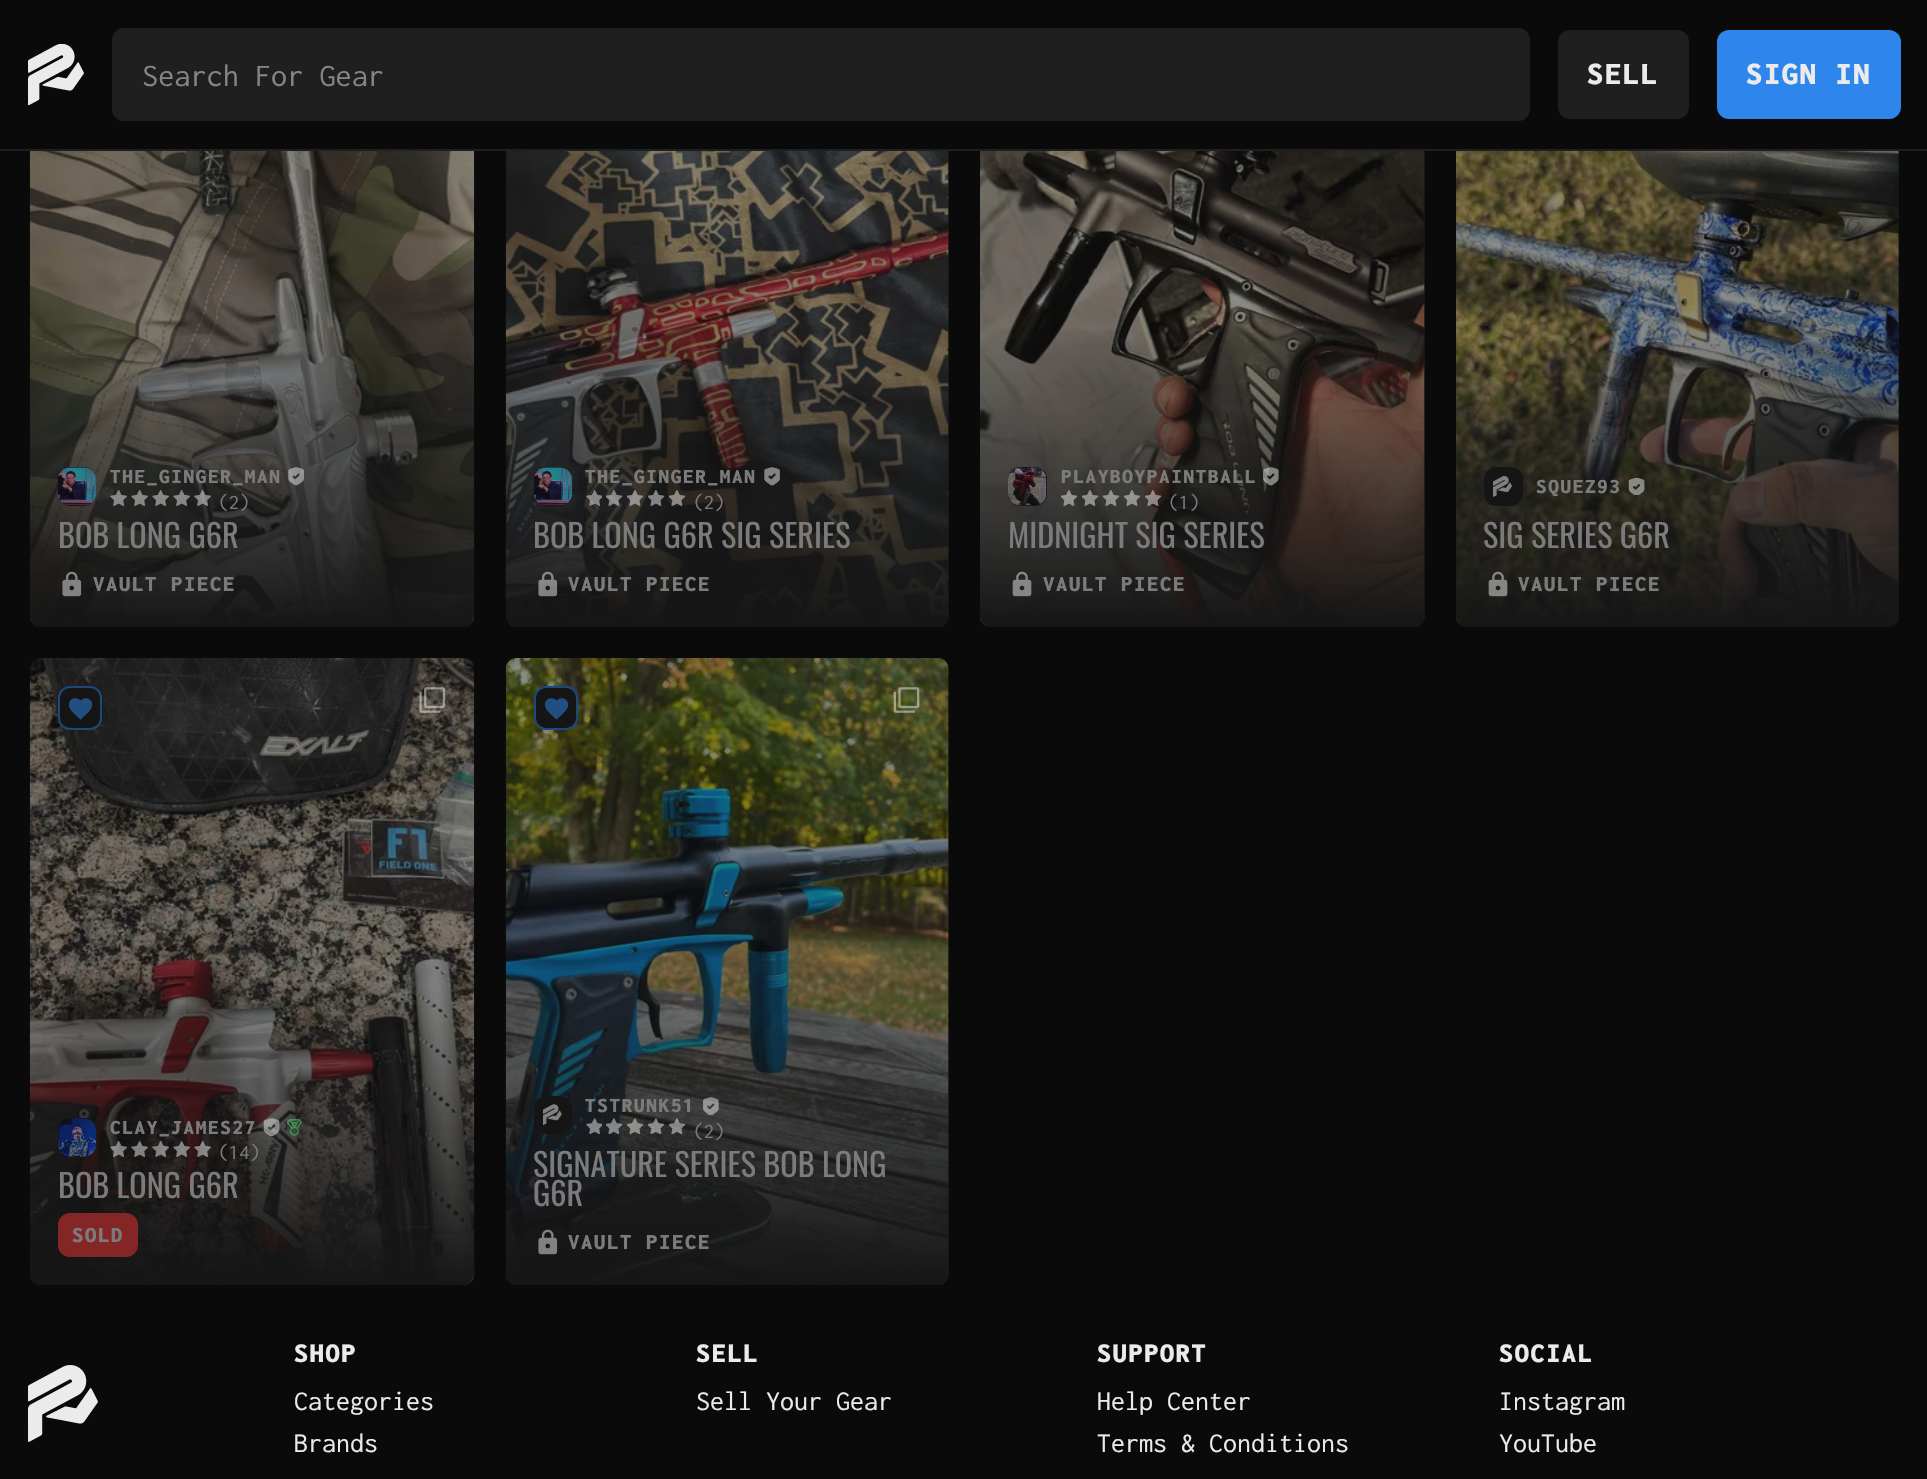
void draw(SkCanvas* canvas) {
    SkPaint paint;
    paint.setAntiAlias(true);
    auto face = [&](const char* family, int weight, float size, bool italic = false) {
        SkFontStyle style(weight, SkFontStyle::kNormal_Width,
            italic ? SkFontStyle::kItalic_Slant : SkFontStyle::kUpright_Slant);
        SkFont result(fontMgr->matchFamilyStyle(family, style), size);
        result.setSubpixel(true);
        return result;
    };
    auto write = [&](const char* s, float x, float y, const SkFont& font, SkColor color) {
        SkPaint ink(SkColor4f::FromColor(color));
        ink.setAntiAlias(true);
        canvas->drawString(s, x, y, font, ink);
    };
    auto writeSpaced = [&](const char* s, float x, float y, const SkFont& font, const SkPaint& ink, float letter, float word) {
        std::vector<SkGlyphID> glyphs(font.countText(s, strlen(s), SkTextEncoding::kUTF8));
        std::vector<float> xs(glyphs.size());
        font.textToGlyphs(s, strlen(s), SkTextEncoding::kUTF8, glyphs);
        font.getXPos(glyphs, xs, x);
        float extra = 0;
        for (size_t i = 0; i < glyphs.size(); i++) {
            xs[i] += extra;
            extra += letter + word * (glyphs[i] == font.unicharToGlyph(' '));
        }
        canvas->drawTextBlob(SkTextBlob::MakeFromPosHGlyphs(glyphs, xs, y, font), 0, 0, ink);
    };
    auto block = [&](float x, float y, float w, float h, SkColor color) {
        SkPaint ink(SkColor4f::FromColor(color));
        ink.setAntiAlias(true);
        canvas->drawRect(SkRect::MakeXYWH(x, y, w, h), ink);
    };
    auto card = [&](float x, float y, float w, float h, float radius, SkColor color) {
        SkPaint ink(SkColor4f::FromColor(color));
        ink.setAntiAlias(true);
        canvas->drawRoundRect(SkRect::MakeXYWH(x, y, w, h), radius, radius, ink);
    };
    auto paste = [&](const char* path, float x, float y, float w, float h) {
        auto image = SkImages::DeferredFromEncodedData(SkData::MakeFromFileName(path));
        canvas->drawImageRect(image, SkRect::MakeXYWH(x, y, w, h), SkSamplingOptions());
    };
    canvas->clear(SkColorSetRGB(10, 10, 10));
    card(30, 0, 444, 627, 11, SkColorSetRGB(21, 21, 21));
    card(506, 0, 443, 627, 11, SkColorSetRGB(21, 21, 21));
    card(980, 0, 445, 627, 11, SkColorSetRGB(21, 21, 21));
    card(1456, 0, 443, 627, 11, SkColorSetRGB(21, 21, 21));
    block(30, 0, 1869, 149, SkColorSetRGB(10, 10, 10));
    block(0, 149, 1927, 2, SkColorSetRGB(31, 31, 31));
    paste("pic1.png", 28, 44, 56, 61);
    paint.setColor(SkColorSetRGB(31, 31, 31));
    canvas->drawRoundRect(SkRect::MakeXYWH(113, 29, 1416, 91), 11, 11, paint);
    paint.setStyle(SkPaint::kStroke_Style);
    paint.setStrokeWidth(2);
    canvas->drawRoundRect(SkRect::MakeXYWH(113, 29, 1416, 91), 11, 11, paint);
    auto kFont1 = face("Inconsolata", 400, 32.25f);
    write("Search For Gear", 142, 86, kFont1, SkColorSetRGB(133, 133, 133));
    card(1558, 30, 131, 89, 12, SkColorSetRGB(31, 31, 31));
    auto kFont2 = face("Inconsolata", 900, 32.25f);
    paint.setStyle(SkPaint::kFill_Style);
    paint.setColor(SkColorSetRGB(235, 235, 235));
    writeSpaced("SELL", 1587, 84, kFont2, paint, 1.75f, 0);
    card(1717, 30, 184, 89, 12, SkColorSetRGB(46, 133, 235));
    writeSpaced("SIGN IN", 1746, 84, kFont2, paint, 1.75f, 0);
    paste("pic2.png", 29, 151, 446, 476);
    {
        const SkColor colors[] = {SkColorSetRGB(21, 21, 21), SkColorSetARGB(0, 21, 21, 21)};
        const float stops[] = {0, 1};
        const SkPoint ends[] = {{252, 627}, {252, 327}};
        paint.setShader(SkGradientShader::MakeLinear(ends, colors, stops, 2, SkTileMode::kClamp));
        paint.setAlpha(255);
    }
    canvas->drawPath(SkPathBuilder().moveTo(30, 327).lineTo(474, 327).lineTo(474, 616).cubicTo(474, 622, 469, 627, 463, 627).lineTo(41, 627).cubicTo(35, 627, 30, 622, 30, 616).close().detach(), paint);
    card(58, 467, 38, 39, 12, SkColorSetRGB(21, 21, 21));
    paste("pic3.png", 58, 467, 38, 39);
    auto kFont3 = face("Inconsolata", 900, 21);
    paint.setShader(nullptr);
    paint.setColor(SkColorSetRGB(123, 123, 123));
    writeSpaced("THE_GINGER_MAN", 110, 483, kFont3, paint, 1.75f, 0);
    paste("pic4.png", 288, 467, 16, 19);
    paste("pic5.png", 110, 490, 17, 16);
    paste("pic6.png", 131, 490, 17, 16);
    paste("pic7.png", 152, 490, 17, 16);
    paste("pic8.png", 173, 490, 17, 16);
    paste("pic9.png", 194, 490, 17, 16);
    auto kFont4 = face("Inconsolata", 400, 21);
    write("(2)", 218, 509, kFont4, SkColorSetRGB(123, 123, 123));
    auto kFont5 = face("Oswald", 400, 32.25f);
    write("BOB LONG G6R", 58, 548, kFont5, SkColorSetRGB(123, 123, 123));
    paste("pic10.png", 62, 571, 20, 26);
    auto kFont6 = face("Inconsolata", 900, 22.5f);
    writeSpaced("VAULT PIECE", 93, 591, kFont6, paint, 1.75f, 0);
    paste("pic11.png", 505, 151, 444, 476);
    {
        const SkColor colors[] = {SkColorSetRGB(21, 21, 21), SkColorSetARGB(0, 21, 21, 21)};
        const float stops[] = {0, 1};
        const SkPoint ends[] = {{727, 627}, {727, 327}};
        paint.setShader(SkGradientShader::MakeLinear(ends, colors, stops, 2, SkTileMode::kClamp));
        paint.setAlpha(255);
    }
    canvas->drawPath(SkPathBuilder().moveTo(506, 327).lineTo(949, 327).lineTo(949, 616).cubicTo(949, 622, 944, 627, 938, 627).lineTo(517, 627).cubicTo(511, 627, 506, 622, 506, 616).close().detach(), paint);
    card(534, 467, 38, 39, 12, SkColorSetRGB(21, 21, 21));
    paste("pic12.png", 534, 467, 38, 39);
    paint.setShader(nullptr);
    paint.setColor(SkColorSetRGB(123, 123, 123));
    writeSpaced("THE_GINGER_MAN", 585, 483, kFont3, paint, 1.75f, 0);
    paste("pic13.png", 764, 467, 16, 19);
    paste("pic14.png", 586, 490, 16, 16);
    paste("pic15.png", 606, 490, 17, 16);
    paste("pic16.png", 627, 490, 17, 16);
    paste("pic17.png", 648, 490, 17, 16);
    paste("pic18.png", 669, 490, 17, 16);
    write("(2)", 693, 509, kFont4, SkColorSetRGB(123, 123, 123));
    write("BOB LONG G6R SIG SERIES", 533, 548, kFont5, SkColorSetRGB(123, 123, 123));
    paste("pic19.png", 538, 571, 20, 26);
    writeSpaced("VAULT PIECE", 568, 591, kFont6, paint, 1.75f, 0);
    paste("pic20.png", 980, 151, 445, 476);
    {
        const SkColor colors[] = {SkColorSetRGB(21, 21, 21), SkColorSetARGB(0, 21, 21, 21)};
        const float stops[] = {0, 1};
        const SkPoint ends[] = {{1202, 627}, {1202, 327}};
        paint.setShader(SkGradientShader::MakeLinear(ends, colors, stops, 2, SkTileMode::kClamp));
        paint.setAlpha(255);
    }
    canvas->drawPath(SkPathBuilder().moveTo(980, 327).lineTo(1425, 327).lineTo(1425, 616).cubicTo(1425, 622, 1420, 627, 1414, 627).lineTo(991, 627).cubicTo(985, 627, 980, 622, 980, 616).close().detach(), paint);
    card(1008, 467, 39, 39, 12, SkColorSetRGB(21, 21, 21));
    paste("pic21.png", 1008, 467, 39, 39);
    paint.setShader(nullptr);
    paint.setColor(SkColorSetRGB(123, 123, 123));
    writeSpaced("PLAYBOYPAINTBALL", 1061, 483, kFont3, paint, 1.75f, 0);
    paste("pic22.png", 1263, 467, 16, 19);
    paste("pic23.png", 1061, 490, 17, 16);
    paste("pic24.png", 1082, 490, 17, 16);
    paste("pic25.png", 1103, 490, 17, 16);
    paste("pic26.png", 1124, 490, 17, 16);
    paste("pic27.png", 1145, 490, 17, 16);
    write("(1)", 1168, 509, kFont4, SkColorSetRGB(123, 123, 123));
    write("MIDNIGHT SIG SERIES", 1008, 548, kFont5, SkColorSetRGB(123, 123, 123));
    paste("pic28.png", 1012, 571, 20, 26);
    writeSpaced("VAULT PIECE", 1043, 591, kFont6, paint, 1.75f, 0);
    paste("pic29.png", 1456, 151, 443, 476);
    {
        const SkColor colors[] = {SkColorSetRGB(21, 21, 21), SkColorSetARGB(0, 21, 21, 21)};
        const float stops[] = {0, 1};
        const SkPoint ends[] = {{1677, 627}, {1677, 327}};
        paint.setShader(SkGradientShader::MakeLinear(ends, colors, stops, 2, SkTileMode::kClamp));
        paint.setAlpha(255);
    }
    canvas->drawPath(SkPathBuilder().moveTo(1456, 327).lineTo(1899, 327).lineTo(1899, 616).cubicTo(1899, 622, 1894, 627, 1888, 627).lineTo(1467, 627).cubicTo(1461, 627, 1456, 622, 1456, 616).close().detach(), paint);
    card(1484, 467, 39, 39, 12, SkColorSetRGB(21, 21, 21));
    paste("pic30.png", 1493, 476, 19, 21);
    paint.setShader(nullptr);
    paint.setColor(SkColorSetRGB(123, 123, 123));
    writeSpaced("SQUEZ93", 1536, 493, kFont3, paint, 1.75f, 0);
    paste("pic31.png", 1628, 478, 17, 17);
    write("SIG SERIES G6R", 1483, 548, kFont5, SkColorSetRGB(123, 123, 123));
    paste("pic32.png", 1488, 571, 20, 26);
    writeSpaced("VAULT PIECE", 1518, 591, kFont6, paint, 1.75f, 0);
    card(30, 658, 444, 627, 11, SkColorSetRGB(21, 21, 21));
    paste("pic34.png", 29, 658, 446, 627);
    paint.setColor(SkColorSetRGB(21, 21, 21));
    canvas->drawRoundRect(SkRect::MakeXYWH(59, 687, 42, 42), 11, 11, paint);
    paint.setStyle(SkPaint::kStroke_Style);
    paint.setColor(SkColorSetRGB(28, 72, 123));
    canvas->drawRoundRect(SkRect::MakeXYWH(59, 687, 42, 42), 11, 11, paint);
    paste("pic33.png", 68, 698, 25, 22);
    paste("pic35.png", 419, 687, 27, 26);
    paint.setStyle(SkPaint::kFill_Style);
    {
        const SkColor colors[] = {SkColorSetRGB(21, 21, 21), SkColorSetARGB(0, 21, 21, 21)};
        const float stops[] = {0, 1};
        const SkPoint ends[] = {{252, 1285}, {252, 978}};
        paint.setShader(SkGradientShader::MakeLinear(ends, colors, stops, 2, SkTileMode::kClamp));
        paint.setAlpha(255);
    }
    canvas->drawPath(SkPathBuilder().moveTo(30, 978).lineTo(474, 978).lineTo(474, 1274).cubicTo(474, 1280, 469, 1285, 463, 1285).lineTo(41, 1285).cubicTo(35, 1285, 30, 1280, 30, 1274).close().detach(), paint);
    card(58, 1118, 38, 39, 12, SkColorSetRGB(21, 21, 21));
    paste("pic36.png", 58, 1118, 38, 39);
    paint.setShader(nullptr);
    paint.setColor(SkColorSetRGB(123, 123, 123));
    writeSpaced("CLAY_JAMES27", 110, 1134, kFont3, paint, 1.75f, 0);
    paste("pic37.png", 263, 1118, 17, 18);
    paste("pic38.png", 286, 1119, 16, 17);
    paste("pic39.png", 110, 1141, 17, 16);
    paste("pic40.png", 131, 1141, 17, 16);
    paste("pic41.png", 152, 1141, 17, 16);
    paste("pic42.png", 173, 1141, 17, 16);
    paste("pic43.png", 194, 1141, 17, 16);
    write("(14)", 218, 1159, kFont4, SkColorSetRGB(123, 123, 123));
    write("BOB LONG G6R", 58, 1198, kFont5, SkColorSetRGB(123, 123, 123));
    card(58, 1213, 80, 44, 12, SkColorSetRGB(133, 38, 38));
    writeSpaced("SOLD", 72, 1242, kFont6, paint, 1.75f, 0);
    card(506, 658, 443, 627, 11, SkColorSetRGB(21, 21, 21));
    paste("pic44.png", 505, 658, 444, 627);
    paint.setColor(SkColorSetRGB(21, 21, 21));
    canvas->drawRoundRect(SkRect::MakeXYWH(535, 687, 42, 42), 11, 11, paint);
    paint.setStyle(SkPaint::kStroke_Style);
    paint.setColor(SkColorSetRGB(28, 72, 123));
    canvas->drawRoundRect(SkRect::MakeXYWH(535, 687, 42, 42), 11, 11, paint);
    paste("pic33.png", 544, 698, 25, 22);
    paste("pic45.png", 893, 687, 27, 26);
    paint.setStyle(SkPaint::kFill_Style);
    {
        const SkColor colors[] = {SkColorSetRGB(21, 21, 21), SkColorSetARGB(0, 21, 21, 21)};
        const float stops[] = {0, 1};
        const SkPoint ends[] = {{727, 1285}, {727, 956}};
        paint.setShader(SkGradientShader::MakeLinear(ends, colors, stops, 2, SkTileMode::kClamp));
        paint.setAlpha(255);
    }
    canvas->drawPath(SkPathBuilder().moveTo(506, 956).lineTo(949, 956).lineTo(949, 1274).cubicTo(949, 1280, 944, 1285, 938, 1285).lineTo(517, 1285).cubicTo(511, 1285, 506, 1280, 506, 1274).close().detach(), paint);
    card(534, 1096, 38, 38, 12, SkColorSetRGB(21, 21, 21));
    paste("pic46.png", 543, 1104, 19, 21);
    paint.setShader(nullptr);
    paint.setColor(SkColorSetRGB(123, 123, 123));
    writeSpaced("TSTRUNK51", 585, 1112, kFont3, paint, 1.75f, 0);
    paste("pic47.png", 703, 1097, 16, 18);
    paste("pic48.png", 586, 1118, 16, 16);
    paste("pic49.png", 606, 1118, 17, 16);
    paste("pic50.png", 627, 1118, 17, 16);
    paste("pic51.png", 648, 1118, 17, 16);
    paste("pic52.png", 669, 1118, 17, 16);
    write("(2)", 693, 1138, kFont4, SkColorSetRGB(123, 123, 123));
    write("SIGNATURE SERIES BOB LONG", 533, 1177, kFont5, SkColorSetRGB(123, 123, 123));
    write("G6R", 533, 1206, kFont5, SkColorSetRGB(123, 123, 123));
    paste("pic53.png", 538, 1229, 20, 26);
    writeSpaced("VAULT PIECE", 568, 1249, kFont6, paint, 1.75f, 0);
    paste("pic54.png", 28, 1365, 70, 77);
    auto kFont7 = face("Inconsolata", 900, 28);
    paint.setColor(SkColorSetRGB(235, 235, 235));
    writeSpaced("SHOP", 294, 1362, kFont7, paint, 1.75f, 0);
    auto kFont8 = face("Inconsolata", 400, 28);
    write("Categories", 294, 1410, kFont8, SkColorSetRGB(235, 235, 235));
    write("Brands", 294, 1452, kFont8, SkColorSetRGB(235, 235, 235));
    writeSpaced("SELL", 696, 1362, kFont7, paint, 1.75f, 0);
    write("Sell Your Gear", 696, 1410, kFont8, SkColorSetRGB(235, 235, 235));
    writeSpaced("SUPPORT", 1097, 1362, kFont7, paint, 1.75f, 0);
    write("Help Center", 1097, 1410, kFont8, SkColorSetRGB(235, 235, 235));
    write("Terms & Conditions", 1097, 1452, kFont8, SkColorSetRGB(235, 235, 235));
    writeSpaced("SOCIAL", 1499, 1362, kFont7, paint, 1.75f, 0);
    write("Instagram", 1499, 1410, kFont8, SkColorSetRGB(235, 235, 235));
    write("YouTube", 1499, 1452, kFont8, SkColorSetRGB(235, 235, 235));
}
